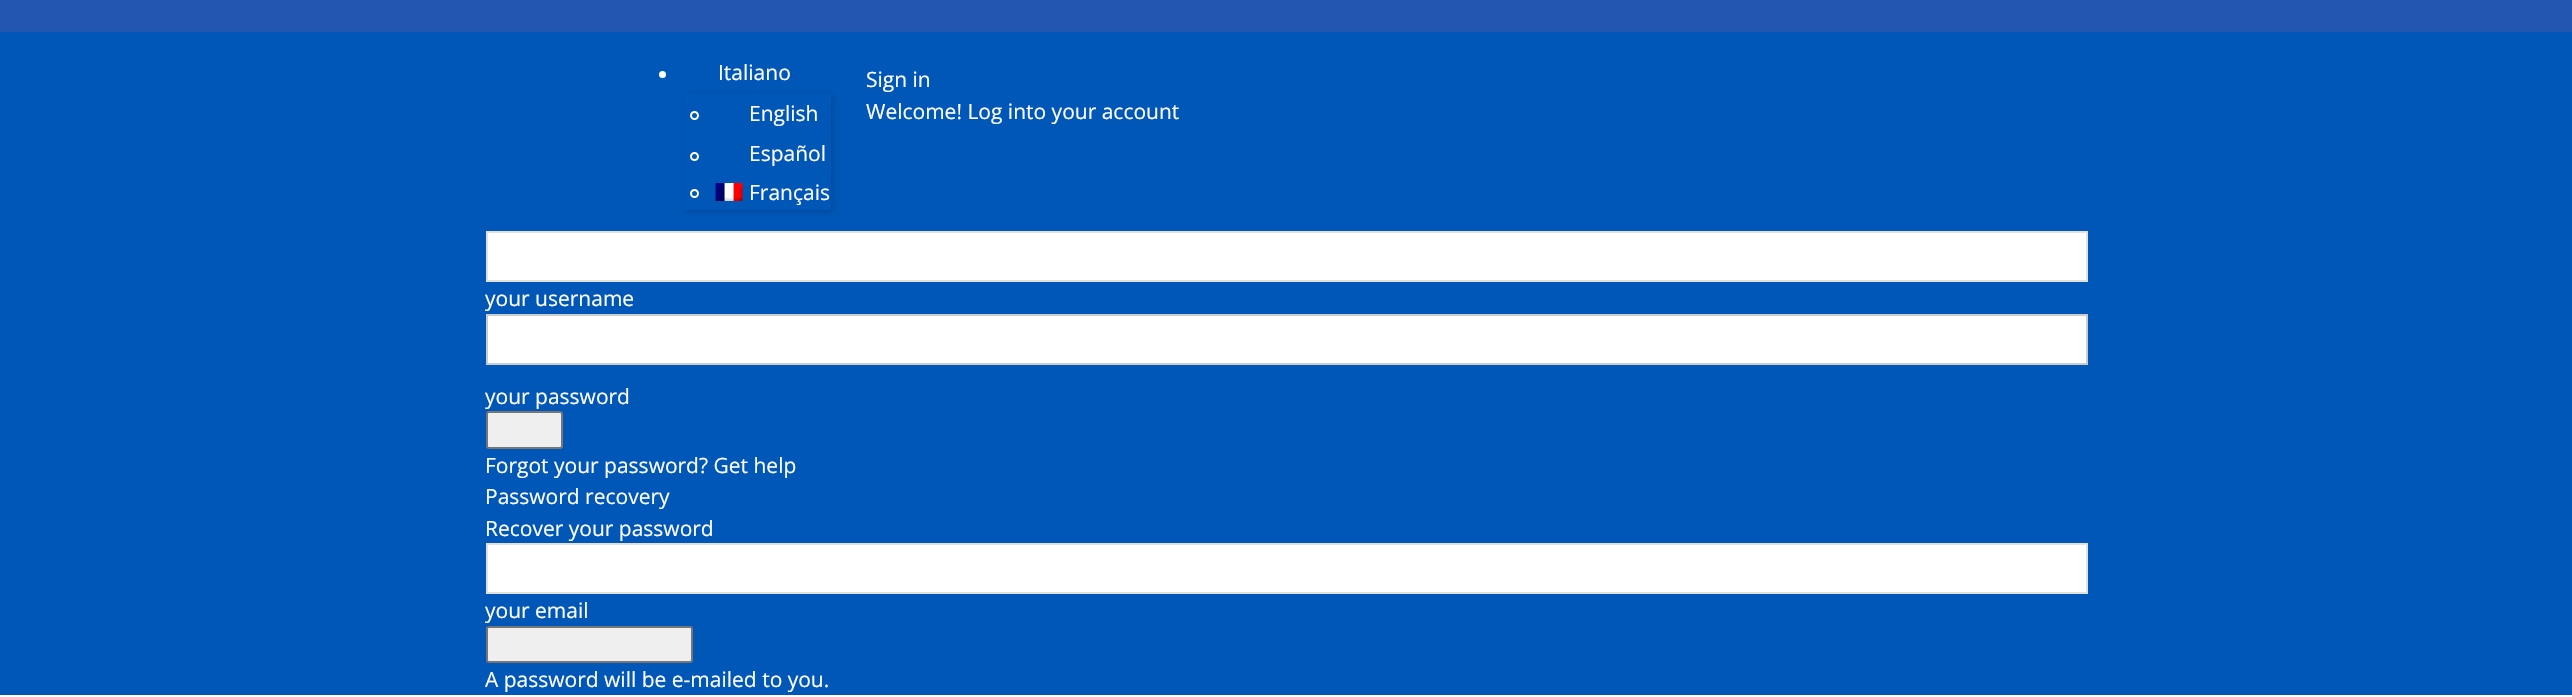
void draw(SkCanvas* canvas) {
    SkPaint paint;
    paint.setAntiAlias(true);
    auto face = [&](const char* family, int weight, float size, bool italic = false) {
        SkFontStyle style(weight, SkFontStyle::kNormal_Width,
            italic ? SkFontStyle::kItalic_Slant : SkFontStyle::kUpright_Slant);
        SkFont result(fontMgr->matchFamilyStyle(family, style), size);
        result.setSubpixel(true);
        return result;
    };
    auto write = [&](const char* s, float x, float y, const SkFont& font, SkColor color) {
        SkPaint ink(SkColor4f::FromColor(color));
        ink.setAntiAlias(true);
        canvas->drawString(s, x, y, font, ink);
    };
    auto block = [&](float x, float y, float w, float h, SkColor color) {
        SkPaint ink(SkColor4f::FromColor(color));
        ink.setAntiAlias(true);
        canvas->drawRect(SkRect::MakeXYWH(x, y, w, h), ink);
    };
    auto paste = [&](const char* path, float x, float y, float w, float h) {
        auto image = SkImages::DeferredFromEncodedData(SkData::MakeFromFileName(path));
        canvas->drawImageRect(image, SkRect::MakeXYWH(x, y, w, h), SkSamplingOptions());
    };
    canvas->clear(SkColorSetRGB(34, 86, 177));
    block(0, 32, 2572, 663, SkColorSetRGB(0, 87, 183));
    paint.setColor(SK_ColorWHITE);
    canvas->drawCircle(662.5f, 74.5f, 3.5f, paint);
    auto kFont1 = face("Open Sans", 400, 21);
    write("Italiano", 718, 80, kFont1, SK_ColorWHITE);
    canvas->save();
    canvas->clipPath(SkPathBuilder(SkPathFillType::kEvenOdd).moveTo(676, 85).lineTo(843, 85).lineTo(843, 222).lineTo(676, 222).close().moveTo(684, 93).lineTo(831, 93).lineTo(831, 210).lineTo(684, 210).close().detach(), true);
    paint.setColor(SkColorSetARGB(38, 0, 0, 0));
    paint.setMaskFilter(SkMaskFilter::MakeBlur(kNormal_SkBlurStyle, 3));
    canvas->drawRect(SkRect::MakeXYWH(686, 95, 147, 117), paint);
    paint.setMaskFilter(nullptr);
    canvas->restore();
    paint.setStyle(SkPaint::kStroke_Style);
    paint.setStrokeWidth(2);
    paint.setColor(SK_ColorWHITE);
    canvas->drawCircle(694.5f, 115.5f, 3.5f, paint);
    write("English", 749, 121, kFont1, SK_ColorWHITE);
    canvas->drawCircle(694.5f, 156.5f, 3.5f, paint);
    write("Español", 749, 161, kFont1, SK_ColorWHITE);
    canvas->drawCircle(694.5f, 193.5f, 3.5f, paint);
    paste("pic1.png", 715, 183, 28, 18);
    write("Français", 749, 200, kFont1, SK_ColorWHITE);
    write("Sign in", 866, 87, kFont1, SK_ColorWHITE);
    write("Welcome! Log into your account", 866, 119, kFont1, SK_ColorWHITE);
    paint.setStyle(SkPaint::kFill_Style);
    canvas->drawRect(SkRect::MakeXYWH(487, 232, 1600, 49), paint);
    paint.setStyle(SkPaint::kStroke_Style);
    paint.setColor(SkColorSetRGB(225, 225, 225));
    canvas->drawRect(SkRect::MakeXYWH(487, 232, 1600, 49), paint);
    write("your username", 485, 306, kFont1, SK_ColorWHITE);
    paint.setStyle(SkPaint::kFill_Style);
    paint.setColor(SK_ColorWHITE);
    canvas->drawRect(SkRect::MakeXYWH(487, 315, 1600, 49), paint);
    paint.setStyle(SkPaint::kStroke_Style);
    paint.setColor(SkColorSetRGB(204, 204, 204));
    canvas->drawRect(SkRect::MakeXYWH(487, 315, 1600, 49), paint);
    write("your password", 485, 404, kFont1, SK_ColorWHITE);
    paint.setStyle(SkPaint::kFill_Style);
    paint.setColor(SkColorSetRGB(239, 239, 239));
    canvas->drawRoundRect(SkRect::MakeXYWH(487, 412, 75, 36), 2, 2, paint);
    paint.setStyle(SkPaint::kStroke_Style);
    paint.setColor(SkColorSetRGB(118, 118, 118));
    canvas->drawRoundRect(SkRect::MakeXYWH(487, 412, 75, 36), 2, 2, paint);
    write("Forgot your password? Get help", 485, 473, kFont1, SK_ColorWHITE);
    write("Password recovery", 485, 504, kFont1, SK_ColorWHITE);
    write("Recover your password", 485, 536, kFont1, SK_ColorWHITE);
    paint.setStyle(SkPaint::kFill_Style);
    paint.setColor(SK_ColorWHITE);
    canvas->drawRect(SkRect::MakeXYWH(487, 544, 1600, 49), paint);
    paint.setStyle(SkPaint::kStroke_Style);
    paint.setColor(SkColorSetRGB(225, 225, 225));
    canvas->drawRect(SkRect::MakeXYWH(487, 544, 1600, 49), paint);
    write("your email", 485, 618, kFont1, SK_ColorWHITE);
    paint.setStyle(SkPaint::kFill_Style);
    paint.setColor(SkColorSetRGB(239, 239, 239));
    canvas->drawRoundRect(SkRect::MakeXYWH(487, 627, 205, 35), 2, 2, paint);
    paint.setStyle(SkPaint::kStroke_Style);
    paint.setColor(SkColorSetRGB(118, 118, 118));
    canvas->drawRoundRect(SkRect::MakeXYWH(487, 627, 205, 35), 2, 2, paint);
    write("A password will be e-mailed to you.", 485, 687, kFont1, SK_ColorWHITE);
    block(0, 695, 2572, 2, SK_ColorWHITE);
}
